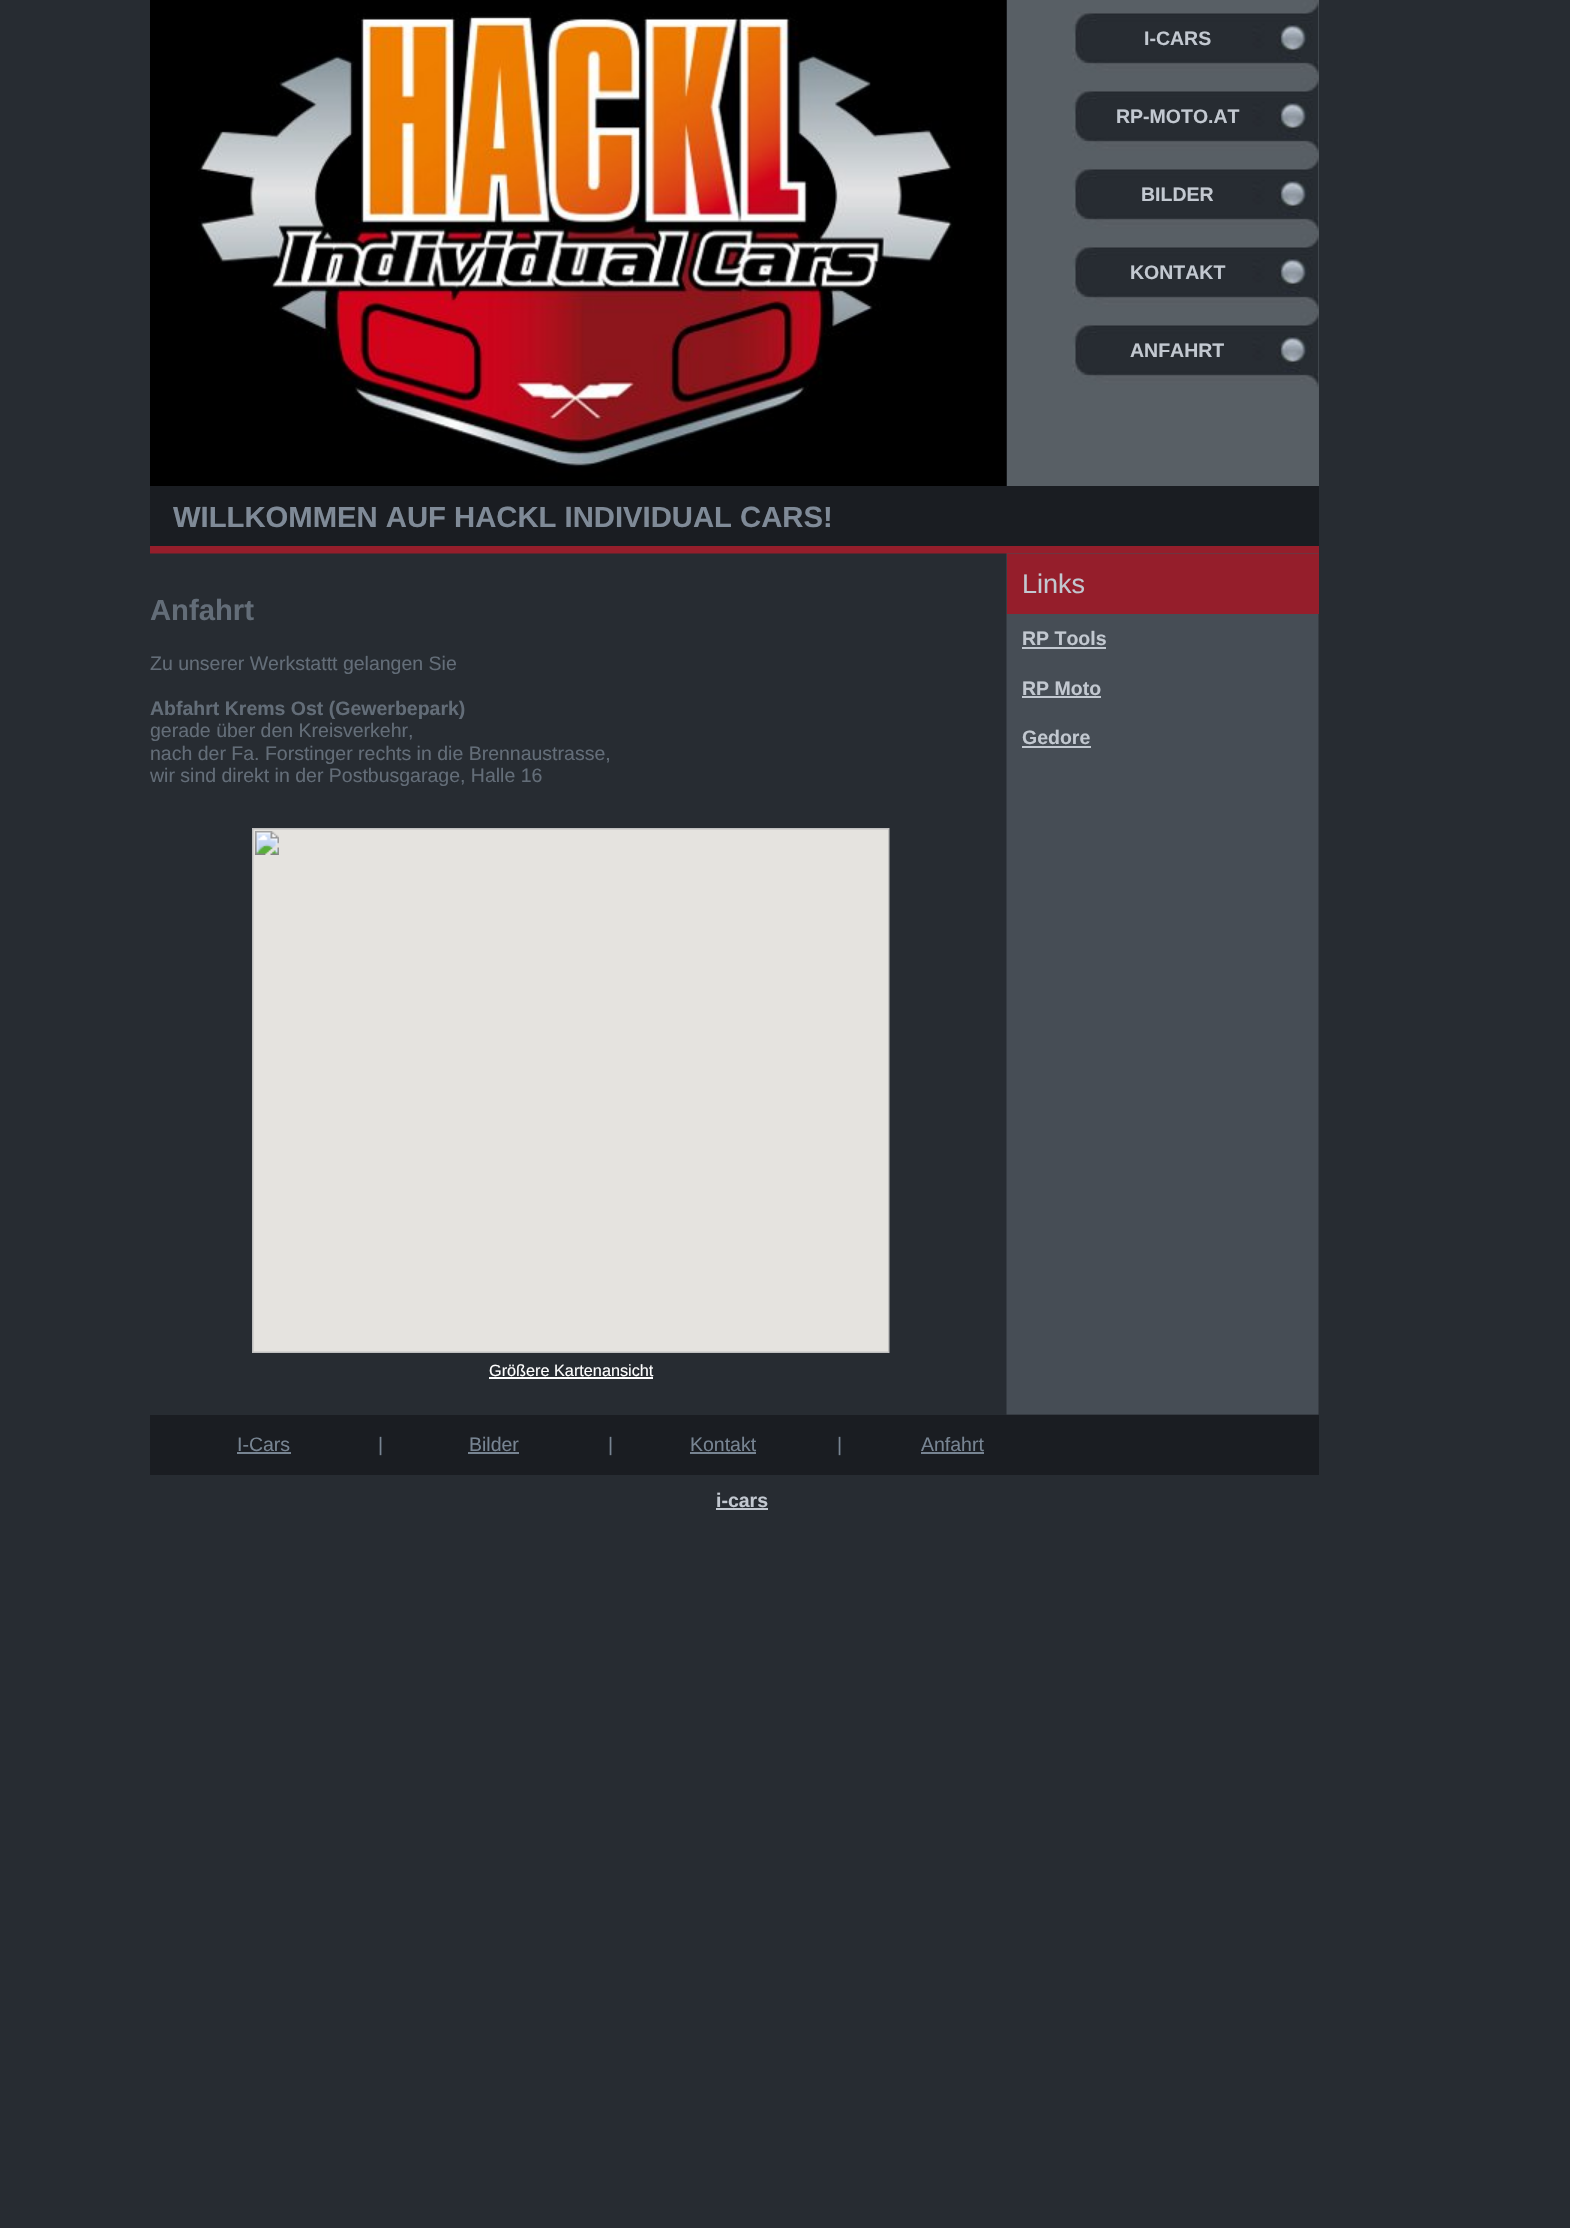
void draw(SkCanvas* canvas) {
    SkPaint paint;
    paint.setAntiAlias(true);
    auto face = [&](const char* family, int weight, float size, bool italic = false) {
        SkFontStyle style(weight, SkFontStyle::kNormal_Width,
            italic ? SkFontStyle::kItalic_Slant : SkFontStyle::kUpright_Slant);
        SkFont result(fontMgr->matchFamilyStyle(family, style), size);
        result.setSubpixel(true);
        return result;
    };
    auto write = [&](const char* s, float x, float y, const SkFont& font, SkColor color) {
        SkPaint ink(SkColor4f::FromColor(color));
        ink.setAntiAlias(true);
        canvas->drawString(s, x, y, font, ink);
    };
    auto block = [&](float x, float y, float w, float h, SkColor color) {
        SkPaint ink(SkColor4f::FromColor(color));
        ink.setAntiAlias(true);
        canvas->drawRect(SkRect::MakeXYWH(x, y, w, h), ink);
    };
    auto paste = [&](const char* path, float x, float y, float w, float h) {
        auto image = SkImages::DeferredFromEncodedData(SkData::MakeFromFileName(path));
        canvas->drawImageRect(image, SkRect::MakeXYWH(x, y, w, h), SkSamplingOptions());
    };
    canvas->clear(SkColorSetRGB(39, 44, 50));
    paste("pic1.png", 150, 0, 857, 486);
    block(1007, 0, 312, 486, SkColorSetRGB(88, 95, 101));
    paste("pic2.png", 1072, 0, 247, 75);
    auto kFont1 = face("Liberation Sans", 700, 19.5f);
    write("I-CARS", 1144, 45, kFont1, SkColorSetRGB(194, 200, 208));
    paste("pic2.png", 1072, 78, 247, 75);
    write("RP-MOTO.AT", 1116, 123, kFont1, SkColorSetRGB(194, 200, 208));
    paste("pic2.png", 1072, 156, 247, 75);
    write("BILDER", 1141, 201, kFont1, SkColorSetRGB(194, 200, 208));
    paste("pic2.png", 1072, 234, 247, 75);
    write("KONTAKT", 1130, 279, kFont1, SkColorSetRGB(194, 200, 208));
    paste("pic2.png", 1072, 312, 247, 75);
    write("ANFAHRT", 1130, 357, kFont1, SkColorSetRGB(194, 200, 208));
    block(150, 486, 1169, 60, SkColorSetRGB(26, 29, 34));
    auto kFont2 = face("Liberation Sans", 700, 29.25f);
    write("WILLKOMMEN AUF HACKL INDIVIDUAL CARS!", 173, 527, kFont2, SkColorSetRGB(127, 138, 151));
    block(150, 546, 1169, 8, SkColorSetRGB(149, 30, 43));
    paste("pic3.png", 150, 553, 1169, 862);
    write("Anfahrt", 150, 620, kFont2, SkColorSetRGB(99, 109, 120));
    auto kFont3 = face("Liberation Sans", 400, 19.5f);
    write("Zu unserer Werkstattt gelangen Sie", 150, 670, kFont3, SkColorSetRGB(99, 109, 120));
    write("Abfahrt Krems Ost (Gewerbepark)", 150, 715, kFont1, SkColorSetRGB(99, 109, 120));
    write("gerade über den Kreisverkehr,", 150, 737, kFont3, SkColorSetRGB(99, 109, 120));
    write("nach der Fa. Forstinger rechts in die Brennaustrasse,", 150, 760, kFont3, SkColorSetRGB(99, 109, 120));
    write("wir sind direkt in der Postbusgarage, Halle 16", 150, 782, kFont3, SkColorSetRGB(99, 109, 120));
    paste("pic4.png", 252, 828, 638, 525);
    auto kFont4 = face("Liberation Sans", 400, 16.25f);
    write("Größere Kartenansicht", 489, 1376, kFont4, SK_ColorWHITE);
    block(489, 1377, 164, 2, SK_ColorWHITE);
    block(1007, 554, 312, 60, SkColorSetRGB(149, 30, 43));
    auto kFont5 = face("Liberation Sans", 400, 27);
    write("Links", 1022, 593, kFont5, SkColorSetRGB(194, 200, 208));
    write("RP Tools", 1022, 645, kFont1, SkColorSetRGB(194, 200, 208));
    block(1022, 647, 84, 2, SkColorSetRGB(194, 200, 208));
    write("RP Moto", 1022, 695, kFont1, SkColorSetRGB(194, 200, 208));
    block(1022, 696, 79, 2, SkColorSetRGB(194, 200, 208));
    write("Gedore", 1022, 744, kFont1, SkColorSetRGB(194, 200, 208));
    block(1022, 746, 69, 2, SkColorSetRGB(194, 200, 208));
    block(150, 1415, 1169, 60, SkColorSetRGB(26, 29, 34));
    write("I-Cars", 237, 1451, kFont3, SkColorSetRGB(119, 132, 146));
    block(237, 1452, 54, 2, SkColorSetRGB(119, 132, 146));
    write("|", 378, 1451, kFont3, SkColorSetRGB(119, 132, 146));
    write("Bilder", 469, 1451, kFont3, SkColorSetRGB(119, 132, 146));
    block(468, 1452, 51, 2, SkColorSetRGB(119, 132, 146));
    write("|", 608, 1451, kFont3, SkColorSetRGB(119, 132, 146));
    write("Kontakt", 690, 1451, kFont3, SkColorSetRGB(119, 132, 146));
    block(690, 1452, 66, 2, SkColorSetRGB(119, 132, 146));
    write("|", 837, 1451, kFont3, SkColorSetRGB(119, 132, 146));
    write("Anfahrt", 921, 1451, kFont3, SkColorSetRGB(119, 132, 146));
    block(921, 1452, 63, 2, SkColorSetRGB(119, 132, 146));
    write("i-cars", 716, 1507, kFont1, SkColorSetRGB(194, 200, 208));
    block(716, 1508, 52, 2, SkColorSetRGB(194, 200, 208));
}
